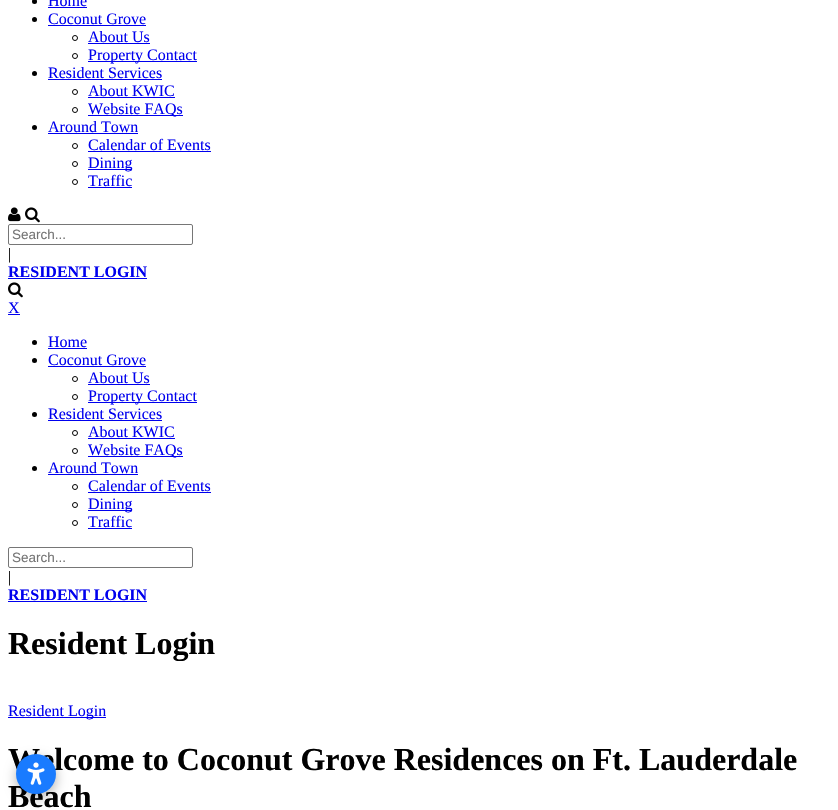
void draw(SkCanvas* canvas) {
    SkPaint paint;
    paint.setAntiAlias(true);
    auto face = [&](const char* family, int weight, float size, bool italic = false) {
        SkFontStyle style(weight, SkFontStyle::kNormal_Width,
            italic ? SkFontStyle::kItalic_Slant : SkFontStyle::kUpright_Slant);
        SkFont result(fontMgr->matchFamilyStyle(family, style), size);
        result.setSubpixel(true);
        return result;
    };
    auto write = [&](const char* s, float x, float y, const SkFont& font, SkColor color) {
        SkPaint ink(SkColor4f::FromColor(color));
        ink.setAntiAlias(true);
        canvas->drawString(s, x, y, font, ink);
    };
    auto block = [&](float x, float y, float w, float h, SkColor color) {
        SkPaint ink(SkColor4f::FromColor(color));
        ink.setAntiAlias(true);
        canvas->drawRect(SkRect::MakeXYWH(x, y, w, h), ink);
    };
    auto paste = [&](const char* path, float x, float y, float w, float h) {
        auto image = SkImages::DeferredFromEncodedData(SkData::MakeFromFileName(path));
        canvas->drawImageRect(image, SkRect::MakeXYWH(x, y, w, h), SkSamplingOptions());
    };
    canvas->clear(SK_ColorWHITE);
    paint.setColor(SK_ColorBLACK);
    canvas->drawCircle(34.5f, 1.5f, 2.5f, paint);
    auto kFont1 = face("Liberation Serif", 400, 16);
    write("Home", 48, 6, kFont1, SkColorSetRGB(0, 0, 238));
    block(48, 7, 39, 1, SkColorSetRGB(0, 0, 238));
    canvas->drawCircle(34.5f, 19.5f, 2.5f, paint);
    write("Coconut Grove", 48, 24, kFont1, SkColorSetRGB(0, 0, 238));
    block(48, 25, 98, 1, SkColorSetRGB(0, 0, 238));
    paint.setStyle(SkPaint::kStroke_Style);
    paint.setStrokeWidth(1);
    canvas->drawCircle(75, 38, 2.5f, paint);
    write("About Us", 88, 42, kFont1, SkColorSetRGB(0, 0, 238));
    block(88, 43, 62, 1, SkColorSetRGB(0, 0, 238));
    canvas->drawCircle(75, 56, 2.5f, paint);
    block(88, 61, 109, 1, SkColorSetRGB(0, 0, 238));
    write("Property Contact", 88, 60, kFont1, SkColorSetRGB(0, 0, 238));
    paint.setStyle(SkPaint::kFill_Style);
    canvas->drawCircle(34.5f, 73.5f, 2.5f, paint);
    write("Resident Services", 48, 78, kFont1, SkColorSetRGB(0, 0, 238));
    block(48, 79, 114, 1, SkColorSetRGB(0, 0, 238));
    paint.setStyle(SkPaint::kStroke_Style);
    canvas->drawCircle(75, 92, 2.5f, paint);
    write("About KWIC", 88, 96, kFont1, SkColorSetRGB(0, 0, 238));
    block(88, 97, 87, 1, SkColorSetRGB(0, 0, 238));
    canvas->drawCircle(75, 110, 2.5f, paint);
    block(88, 115, 95, 1, SkColorSetRGB(0, 0, 238));
    write("Website FAQs", 88, 114, kFont1, SkColorSetRGB(0, 0, 238));
    paint.setStyle(SkPaint::kFill_Style);
    canvas->drawCircle(34.5f, 127.5f, 2.5f, paint);
    write("Around Town", 48, 132, kFont1, SkColorSetRGB(0, 0, 238));
    block(48, 133, 90, 1, SkColorSetRGB(0, 0, 238));
    paint.setStyle(SkPaint::kStroke_Style);
    canvas->drawCircle(75, 146, 2.5f, paint);
    write("Calendar of Events", 88, 150, kFont1, SkColorSetRGB(0, 0, 238));
    block(88, 151, 123, 1, SkColorSetRGB(0, 0, 238));
    canvas->drawCircle(75, 164, 2.5f, paint);
    block(88, 169, 44, 1, SkColorSetRGB(0, 0, 238));
    write("Dining", 88, 168, kFont1, SkColorSetRGB(0, 0, 238));
    canvas->drawCircle(75, 182, 2.5f, paint);
    write("Traffic", 88, 186, kFont1, SkColorSetRGB(0, 0, 238));
    block(88, 187, 44, 1, SkColorSetRGB(0, 0, 238));
    paste("pic1.png", 8, 207, 13, 15);
    paste("pic2.png", 25, 207, 15, 16);
    paint.setColor(SkColorSetRGB(118, 118, 118));
    canvas->drawRoundRect(SkRect::MakeXYWH(8.5f, 224.5f, 184, 20), 1.5f, 1.5f, paint);
    auto kFont2 = face("Liberation Sans", 400, 13.5f);
    write("Search...", 12, 239, kFont2, SkColorSetRGB(117, 117, 117));
    write("|", 8, 259, kFont1, SK_ColorBLACK);
    auto kFont3 = face("Liberation Serif", 700, 16);
    write("RESIDENT LOGIN", 8, 277, kFont3, SkColorSetRGB(0, 0, 238));
    block(8, 278, 139, 1, SkColorSetRGB(0, 0, 238));
    paste("pic2.png", 8, 282, 15, 16);
    write("X", 8, 313, kFont1, SkColorSetRGB(0, 0, 238));
    block(8, 314, 12, 1, SkColorSetRGB(0, 0, 238));
    paint.setStyle(SkPaint::kFill_Style);
    paint.setColor(SK_ColorBLACK);
    canvas->drawCircle(34.5f, 342.5f, 2.5f, paint);
    write("Home", 48, 347, kFont1, SkColorSetRGB(0, 0, 238));
    block(48, 348, 39, 1, SkColorSetRGB(0, 0, 238));
    canvas->drawCircle(34.5f, 360.5f, 2.5f, paint);
    write("Coconut Grove", 48, 365, kFont1, SkColorSetRGB(0, 0, 238));
    block(48, 366, 98, 1, SkColorSetRGB(0, 0, 238));
    paint.setStyle(SkPaint::kStroke_Style);
    canvas->drawCircle(75, 379, 2.5f, paint);
    write("About Us", 88, 383, kFont1, SkColorSetRGB(0, 0, 238));
    block(88, 384, 62, 1, SkColorSetRGB(0, 0, 238));
    canvas->drawCircle(75, 397, 2.5f, paint);
    block(88, 402, 109, 1, SkColorSetRGB(0, 0, 238));
    write("Property Contact", 88, 401, kFont1, SkColorSetRGB(0, 0, 238));
    paint.setStyle(SkPaint::kFill_Style);
    canvas->drawCircle(34.5f, 414.5f, 2.5f, paint);
    write("Resident Services", 48, 419, kFont1, SkColorSetRGB(0, 0, 238));
    block(48, 420, 114, 1, SkColorSetRGB(0, 0, 238));
    paint.setStyle(SkPaint::kStroke_Style);
    canvas->drawCircle(75, 433, 2.5f, paint);
    write("About KWIC", 88, 437, kFont1, SkColorSetRGB(0, 0, 238));
    block(88, 438, 87, 1, SkColorSetRGB(0, 0, 238));
    canvas->drawCircle(75, 451, 2.5f, paint);
    block(88, 456, 95, 1, SkColorSetRGB(0, 0, 238));
    write("Website FAQs", 88, 455, kFont1, SkColorSetRGB(0, 0, 238));
    paint.setStyle(SkPaint::kFill_Style);
    canvas->drawCircle(34.5f, 468.5f, 2.5f, paint);
    write("Around Town", 48, 473, kFont1, SkColorSetRGB(0, 0, 238));
    block(48, 474, 90, 1, SkColorSetRGB(0, 0, 238));
    paint.setStyle(SkPaint::kStroke_Style);
    canvas->drawCircle(75, 487, 2.5f, paint);
    write("Calendar of Events", 88, 491, kFont1, SkColorSetRGB(0, 0, 238));
    block(88, 492, 123, 1, SkColorSetRGB(0, 0, 238));
    canvas->drawCircle(75, 505, 2.5f, paint);
    block(88, 510, 44, 1, SkColorSetRGB(0, 0, 238));
    write("Dining", 88, 509, kFont1, SkColorSetRGB(0, 0, 238));
    canvas->drawCircle(75, 523, 2.5f, paint);
    write("Traffic", 88, 527, kFont1, SkColorSetRGB(0, 0, 238));
    block(88, 528, 44, 1, SkColorSetRGB(0, 0, 238));
    paint.setColor(SkColorSetRGB(118, 118, 118));
    canvas->drawRoundRect(SkRect::MakeXYWH(8.5f, 547.5f, 184, 20), 1.5f, 1.5f, paint);
    write("Search...", 12, 562, kFont2, SkColorSetRGB(117, 117, 117));
    write("|", 8, 582, kFont1, SK_ColorBLACK);
    write("RESIDENT LOGIN", 8, 600, kFont3, SkColorSetRGB(0, 0, 238));
    block(8, 601, 139, 1, SkColorSetRGB(0, 0, 238));
    auto kFont4 = face("Liberation Serif", 700, 32);
    write("Resident Login", 8, 654, kFont4, SK_ColorBLACK);
    block(8, 717, 98, 1, SkColorSetRGB(0, 0, 238));
    write("Resident Login", 8, 716, kFont1, SkColorSetRGB(0, 0, 238));
    write("Welcome to Coconut Grove Residences on Ft. Lauderdale", 8, 770, kFont4, SK_ColorBLACK);
    write("Beach", 8, 807, kFont4, SK_ColorBLACK);
    paint.setStyle(SkPaint::kFill_Style);
    paint.setColor(SkColorSetARGB(77, 0, 0, 0));
    paint.setMaskFilter(SkMaskFilter::MakeBlur(kNormal_SkBlurStyle, 6));
    canvas->drawRoundRect(SkRect::MakeXYWH(16, 758, 40, 40), 20, 20, paint);
    paint.setMaskFilter(nullptr);
    paint.setColor(SkColorSetRGB(25, 123, 255));
    canvas->drawCircle(36, 774, 20, paint);
    paste("pic3.png", 27, 762, 18, 23);
}
